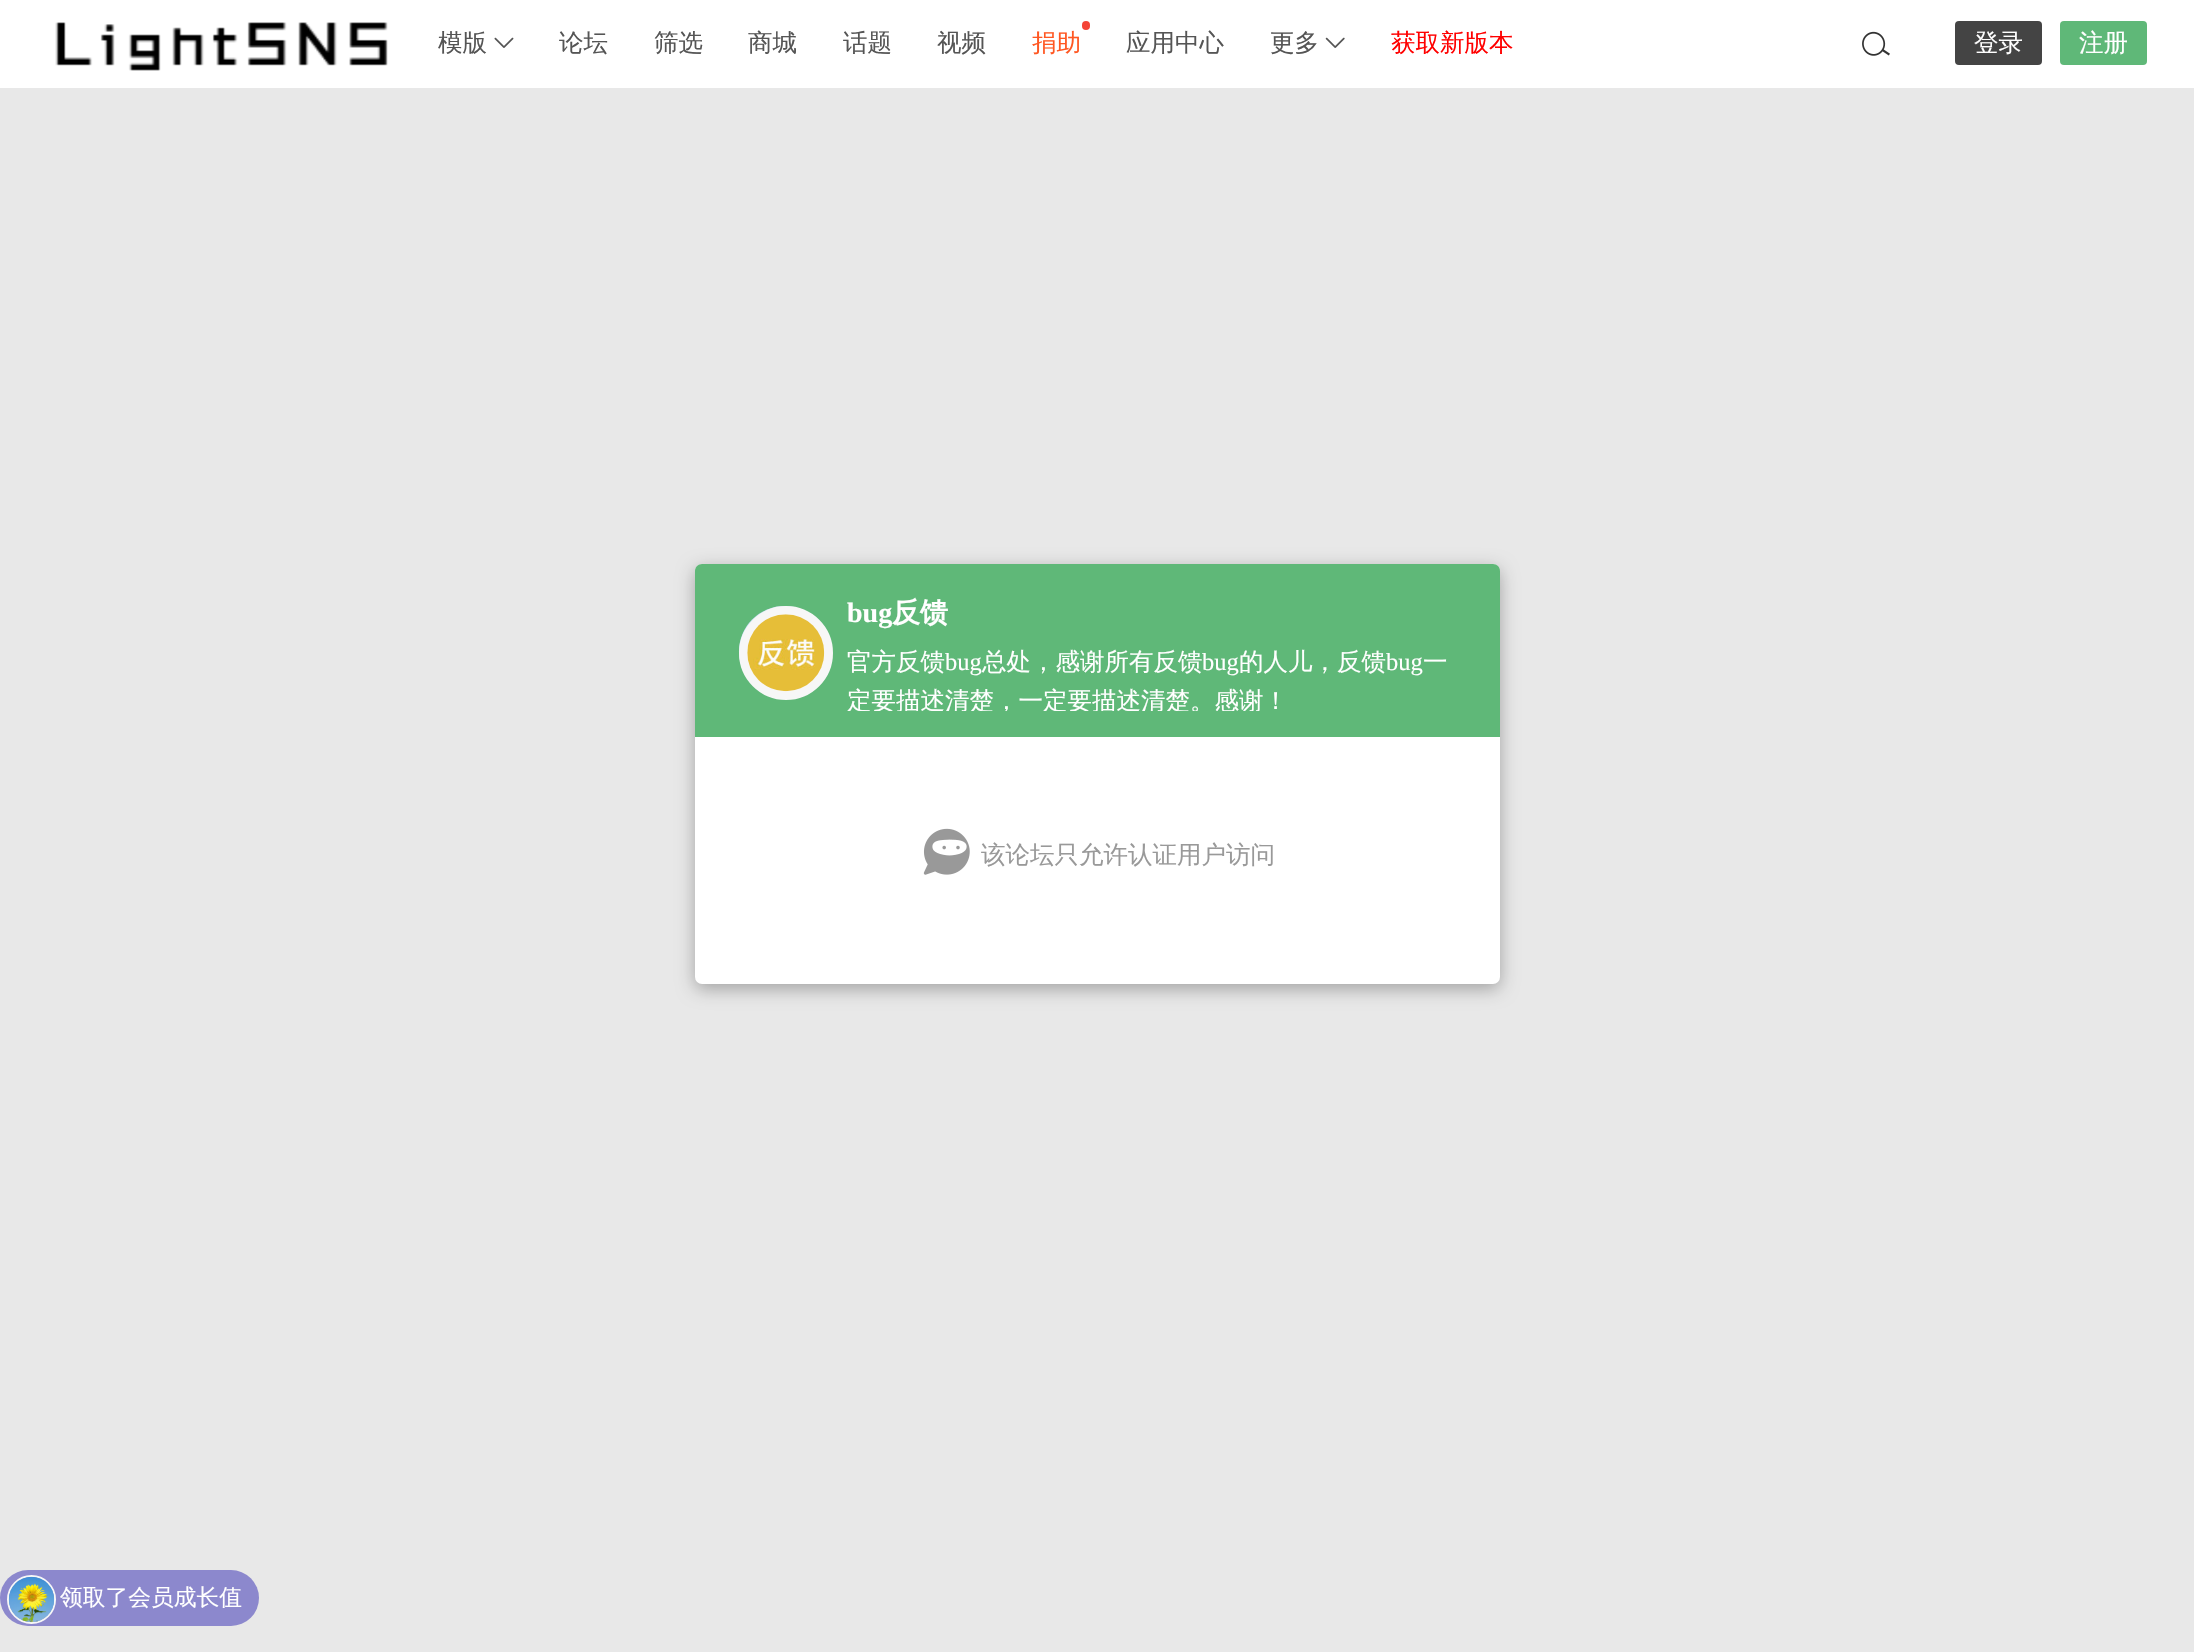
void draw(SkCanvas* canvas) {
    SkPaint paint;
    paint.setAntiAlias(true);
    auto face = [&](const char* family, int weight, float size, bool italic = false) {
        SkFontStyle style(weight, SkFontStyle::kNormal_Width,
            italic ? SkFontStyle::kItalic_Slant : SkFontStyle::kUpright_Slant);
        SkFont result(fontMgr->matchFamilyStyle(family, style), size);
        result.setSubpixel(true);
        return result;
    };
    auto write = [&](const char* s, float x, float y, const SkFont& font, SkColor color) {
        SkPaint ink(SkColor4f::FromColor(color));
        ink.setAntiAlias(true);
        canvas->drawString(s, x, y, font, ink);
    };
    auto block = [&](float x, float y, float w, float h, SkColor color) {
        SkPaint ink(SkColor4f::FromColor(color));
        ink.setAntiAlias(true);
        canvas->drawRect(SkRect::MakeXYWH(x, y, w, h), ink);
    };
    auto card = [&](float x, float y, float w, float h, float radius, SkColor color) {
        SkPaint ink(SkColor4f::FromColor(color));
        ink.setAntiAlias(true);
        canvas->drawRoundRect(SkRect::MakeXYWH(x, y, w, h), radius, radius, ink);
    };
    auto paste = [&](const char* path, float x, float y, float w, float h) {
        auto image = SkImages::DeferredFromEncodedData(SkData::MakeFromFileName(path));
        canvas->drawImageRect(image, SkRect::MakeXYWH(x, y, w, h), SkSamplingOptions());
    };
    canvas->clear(SkColorSetRGB(232, 232, 232));
    block(0, 0, 2194, 88, SK_ColorWHITE);
    paste("pic1.png", 55, 22, 333, 49);
    auto kFont1 = face("WenQuanYi Zen Hei", 500, 24.5f);
    write("模版", 438, 51, kFont1, SkColorSetRGB(85, 85, 85));
    paste("pic2.png", 494, 37, 20, 11);
    write("论坛", 559, 51, kFont1, SkColorSetRGB(85, 85, 85));
    write("筛选", 654, 51, kFont1, SkColorSetRGB(85, 85, 85));
    write("商城", 748, 51, kFont1, SkColorSetRGB(85, 85, 85));
    write("话题", 843, 51, kFont1, SkColorSetRGB(85, 85, 85));
    write("视频", 937, 51, kFont1, SkColorSetRGB(85, 85, 85));
    card(1082, 21, 8, 9, 4, SkColorSetRGB(244, 67, 54));
    write("捐助", 1032, 51, kFont1, SkColorSetRGB(255, 87, 34));
    write("应用中心", 1126, 51, kFont1, SkColorSetRGB(85, 85, 85));
    write("更多", 1270, 51, kFont1, SkColorSetRGB(85, 85, 85));
    paste("pic3.png", 1325, 37, 20, 11);
    write("获取新版本", 1391, 51, kFont1, SkColorSetRGB(255, 0, 0));
    paste("pic4.png", 1862, 31, 28, 25);
    card(1955, 21, 87, 44, 4, SkColorSetRGB(68, 68, 68));
    write("登录", 1974, 51, kFont1, SK_ColorWHITE);
    card(2060, 21, 87, 44, 4, SkColorSetRGB(95, 184, 120));
    write("注册", 2079, 51, kFont1, SK_ColorWHITE);
    paint.setColor(SkColorSetARGB(77, 0, 0, 0));
    paint.setMaskFilter(SkMaskFilter::MakeBlur(kNormal_SkBlurStyle, 9));
    canvas->drawRoundRect(SkRect::MakeXYWH(695, 569, 805, 420), 7, 7, paint);
    paint.setMaskFilter(nullptr);
    card(695, 564, 805, 420, 7, SK_ColorWHITE);
    paint.setColor(SkColorSetRGB(95, 184, 120));
    canvas->drawPath(SkPathBuilder().moveTo(702, 564).lineTo(1493, 564).cubicTo(1497, 564, 1500, 567, 1500, 571).lineTo(1500, 737).lineTo(695, 737).lineTo(695, 571).cubicTo(695, 567, 698, 564, 702, 564).close().detach(), paint);
    paint.setColor(SkColorSetRGB(195, 222, 243));
    canvas->drawCircle(784.5f, 651.5f, 45.5f, paint);
    paint.setColor(SkColorSetRGB(247, 247, 247));
    canvas->drawCircle(786, 653, 46, paint);
    paint.setStyle(SkPaint::kStroke_Style);
    paint.setStrokeWidth(2);
    canvas->drawCircle(786, 653, 46, paint);
    paste("pic5.png", 747, 614, 78, 78);
    auto kFont2 = face("Liberation Serif", 700, 28);
    write("bug", 847, 622, kFont2, SK_ColorWHITE);
    auto kFont3 = face("WenQuanYi Zen Hei", 700, 28);
    write("反馈", 892, 622, kFont3, SK_ColorWHITE);
    write("官方反馈", 847, 670, kFont1, SK_ColorWHITE);
    auto kFont4 = face("Liberation Serif", 400, 24.5f);
    write("bug", 945, 670, kFont4, SK_ColorWHITE);
    write("总处，感谢所有反馈", 982, 670, kFont1, SK_ColorWHITE);
    write("bug", 1202, 670, kFont4, SK_ColorWHITE);
    write("的人儿，反馈", 1239, 670, kFont1, SK_ColorWHITE);
    write("bug", 1386, 670, kFont4, SK_ColorWHITE);
    write("一", 1423, 670, kFont1, SK_ColorWHITE);
    canvas->save();
    canvas->clipRect(SkRect::MakeXYWH(847, 644, 609, 67));
    write("定要描述清楚，一定要描述清楚。感谢！", 847, 709, kFont1, SK_ColorWHITE);
    canvas->restore();
    paste("pic6.png", 923, 828, 47, 47);
    write("该论坛只允许认证用户访问", 981, 863, kFont1, SkColorSetRGB(153, 153, 153));
    card(0, 1570, 259, 56, 28, SkColorSetRGB(140, 136, 205));
    canvas->drawCircle(31.5f, 1599.5f, 23.5f, paint);
    paste("pic7.png", 8, 1576, 47, 47);
    auto kFont5 = face("WenQuanYi Zen Hei", 500, 22.75f);
    write("领取了会员成长值", 60, 1605, kFont5, SK_ColorWHITE);
}
